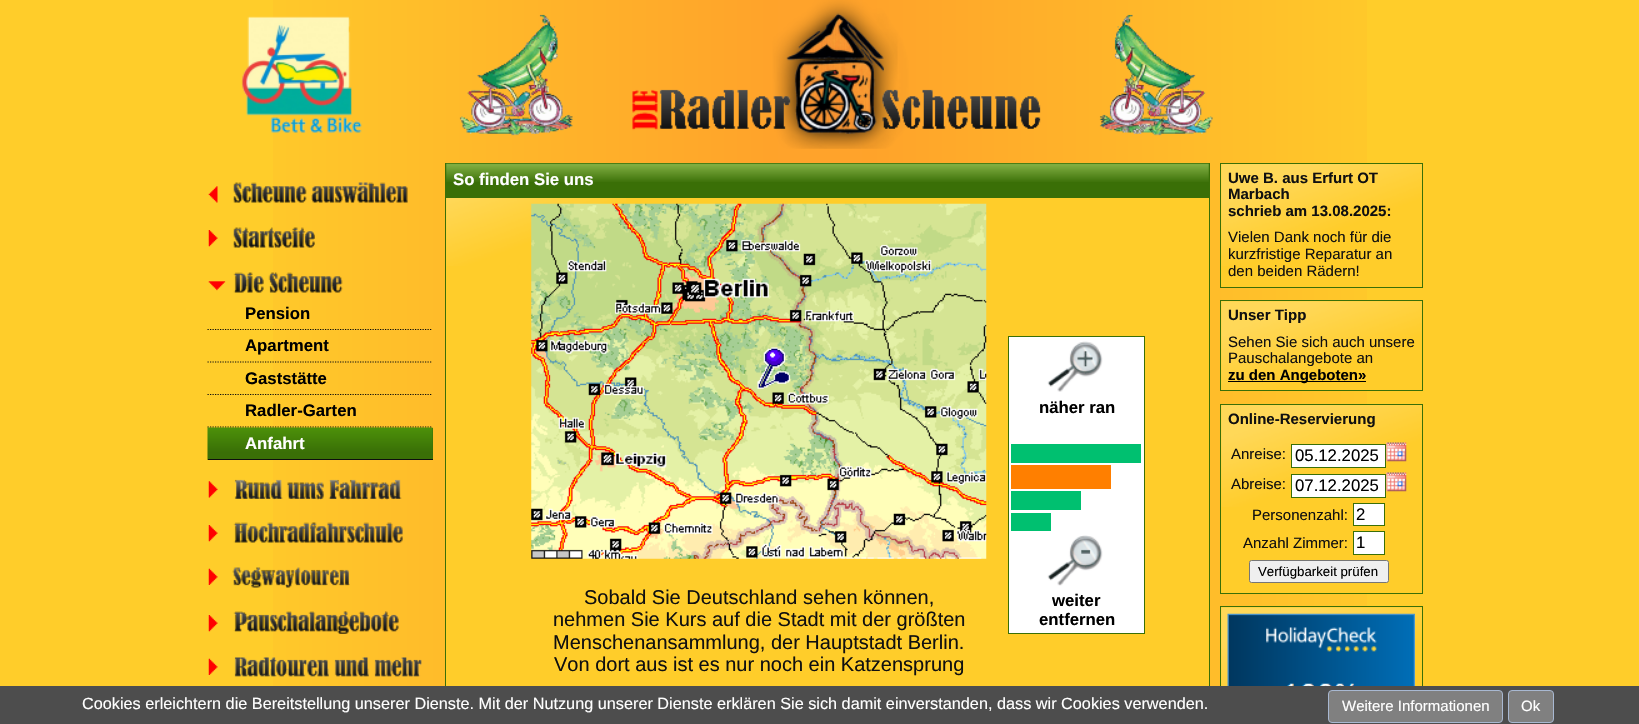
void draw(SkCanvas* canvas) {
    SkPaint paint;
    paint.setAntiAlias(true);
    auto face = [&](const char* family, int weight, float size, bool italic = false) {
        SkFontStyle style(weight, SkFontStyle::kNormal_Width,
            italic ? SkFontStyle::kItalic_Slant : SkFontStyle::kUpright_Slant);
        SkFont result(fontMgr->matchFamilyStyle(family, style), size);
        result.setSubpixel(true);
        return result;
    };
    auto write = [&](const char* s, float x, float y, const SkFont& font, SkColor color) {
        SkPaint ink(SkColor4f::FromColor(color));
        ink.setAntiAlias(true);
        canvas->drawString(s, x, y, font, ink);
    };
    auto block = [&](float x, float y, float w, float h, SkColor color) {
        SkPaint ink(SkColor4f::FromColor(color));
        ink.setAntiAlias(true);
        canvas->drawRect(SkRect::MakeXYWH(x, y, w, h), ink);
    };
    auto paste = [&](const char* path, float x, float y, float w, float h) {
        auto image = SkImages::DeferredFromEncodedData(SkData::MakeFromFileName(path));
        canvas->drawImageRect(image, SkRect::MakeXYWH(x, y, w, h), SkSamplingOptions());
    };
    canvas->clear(SkColorSetRGB(255, 205, 42));
    paste("pic1.png", 273, 0, 1094, 686);
    paste("pic2.png", 241, 0, 972, 149);
    block(446, 198, 763, 488, SkColorSetRGB(255, 205, 42));
    paste("pic3.png", 446, 198, 180, 68);
    paint.setStyle(SkPaint::kStroke_Style);
    paint.setStrokeWidth(1);
    paint.setColor(SkColorSetRGB(58, 111, 7));
    canvas->drawRect(SkRect::MakeXYWH(445.5f, 163.5f, 764, 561), paint);
    block(446, 164, 763, 34, SkColorSetRGB(58, 111, 7));
    paste("pic4.png", 446, 163, 763, 19);
    auto kFont1 = face("Liberation Sans", 700, 16.75f);
    write("So finden Sie uns", 453, 185, kFont1, SK_ColorWHITE);
    paste("pic5.png", 531, 203, 456, 356);
    auto kFont2 = face("Liberation Sans", 400, 20);
    write("Sobald Sie Deutschland sehen können,", 584, 604, kFont2, SkColorSetRGB(16, 16, 16));
    write("nehmen Sie Kurs auf die Stadt mit der größten", 553, 626, kFont2, SkColorSetRGB(16, 16, 16));
    write("Menschenansammlung, der Hauptstadt Berlin.", 553, 649, kFont2, SkColorSetRGB(16, 16, 16));
    write("Von dort aus ist es nur noch ein Katzensprung", 554, 671, kFont2, SkColorSetRGB(16, 16, 16));
    paint.setStyle(SkPaint::kFill_Style);
    paint.setColor(SK_ColorWHITE);
    canvas->drawRect(SkRect::MakeXYWH(1008.5f, 336.5f, 136, 297), paint);
    paint.setStyle(SkPaint::kStroke_Style);
    paint.setColor(SkColorSetRGB(58, 111, 7));
    canvas->drawRect(SkRect::MakeXYWH(1008.5f, 336.5f, 136, 297), paint);
    paste("pic6.png", 1047, 341, 56, 51);
    write("näher ran", 1039, 413, kFont1, SK_ColorBLACK);
    block(1011, 444, 130, 19, SkColorSetRGB(0, 192, 112));
    block(1011, 465, 100, 24, SkColorSetRGB(255, 127, 0));
    block(1011, 491, 70, 19, SkColorSetRGB(0, 192, 112));
    block(1011, 513, 40, 18, SkColorSetRGB(0, 192, 112));
    paste("pic7.png", 1047, 535, 56, 51);
    write("weiter", 1052, 606, kFont1, SK_ColorBLACK);
    write("entfernen", 1039, 625, kFont1, SK_ColorBLACK);
    block(1221, 164, 146, 123, SkColorSetRGB(255, 205, 42));
    paste("pic8.png", 1221, 164, 201, 102);
    canvas->drawRect(SkRect::MakeXYWH(1220.5f, 163.5f, 202, 124), paint);
    auto kFont3 = face("Liberation Sans", 700, 15);
    write("Uwe B. aus Erfurt OT", 1228, 183, kFont3, SkColorSetRGB(16, 16, 16));
    write("Marbach", 1228, 199, kFont3, SkColorSetRGB(16, 16, 16));
    write("schrieb am 13.08.2025:", 1228, 216, kFont3, SkColorSetRGB(16, 16, 16));
    auto kFont4 = face("Liberation Sans", 400, 15);
    write("Vielen Dank noch für die", 1228, 242, kFont4, SkColorSetRGB(16, 16, 16));
    write("kurzfristige Reparatur an", 1228, 259, kFont4, SkColorSetRGB(16, 16, 16));
    write("den beiden Rädern!", 1228, 276, kFont4, SkColorSetRGB(16, 16, 16));
    paste("pic9.png", 208, 186, 10, 17);
    paste("pic10.png", 233, 182, 175, 21);
    paste("pic11.png", 208, 230, 10, 17);
    paste("pic12.png", 233, 227, 82, 21);
    paste("pic13.png", 208, 281, 18, 10);
    paste("pic14.png", 233, 272, 110, 21);
    paint.setStrokeWidth(1.2f);
    paint.setColor(SkColorSetRGB(14, 14, 14));
    paint.setPathEffect(SkDashPathEffect::Make({{1.25f, 1.25f}}, 0));
    canvas->drawPath(SkPathBuilder().moveTo(207.5f, 329.5f).lineTo(432.5f, 329.5f).detach(), paint);
    paint.setPathEffect(nullptr);
    write("Pension", 245, 319, kFont1, SK_ColorBLACK);
    paint.setPathEffect(SkDashPathEffect::Make({{1.25f, 1.25f}}, 0));
    canvas->drawPath(SkPathBuilder().moveTo(207.5f, 362).lineTo(432.5f, 362).detach(), paint);
    paint.setPathEffect(nullptr);
    write("Apartment", 245, 351, kFont1, SK_ColorBLACK);
    paint.setPathEffect(SkDashPathEffect::Make({{1.25f, 1.25f}}, 0));
    canvas->drawPath(SkPathBuilder().moveTo(207.5f, 394.5f).lineTo(432.5f, 394.5f).detach(), paint);
    paint.setPathEffect(nullptr);
    write("Gaststätte", 245, 384, kFont1, SK_ColorBLACK);
    paint.setPathEffect(SkDashPathEffect::Make({{1.25f, 1.25f}}, 0));
    canvas->drawPath(SkPathBuilder().moveTo(207.5f, 427).lineTo(432.5f, 427).detach(), paint);
    paint.setPathEffect(nullptr);
    write("Radler-Garten", 245, 416, kFont1, SK_ColorBLACK);
    block(432, 428, 1, 31, SkColorSetRGB(58, 111, 7));
    paste("pic15.png", 207, 427, 226, 33);
    block(208, 459, 225, 1, SkColorSetRGB(14, 14, 14));
    write("Anfahrt", 245, 449, kFont1, SK_ColorWHITE);
    paste("pic16.png", 208, 481, 10, 17);
    paste("pic17.png", 234, 479, 168, 21);
    paste("pic11.png", 208, 525, 10, 17);
    paste("pic18.png", 233, 522, 170, 21);
    paste("pic19.png", 208, 568, 10, 17);
    paste("pic20.png", 232, 567, 118, 21);
    paste("pic11.png", 208, 615, 10, 17);
    paste("pic21.png", 233, 611, 166, 23);
    paste("pic19.png", 208, 658, 10, 17);
    paste("pic22.png", 234, 657, 188, 20);
    block(1221, 301, 146, 89, SkColorSetRGB(255, 205, 42));
    paste("pic23.png", 1221, 301, 201, 89);
    paint.setStrokeWidth(1);
    paint.setColor(SkColorSetRGB(58, 111, 7));
    canvas->drawRect(SkRect::MakeXYWH(1220.5f, 300.5f, 202, 90), paint);
    write("Unser Tipp", 1228, 320, kFont3, SkColorSetRGB(16, 16, 16));
    write("Sehen Sie sich auch unsere", 1228, 347, kFont4, SkColorSetRGB(16, 16, 16));
    write("Pauschalangebote an", 1228, 363, kFont4, SkColorSetRGB(16, 16, 16));
    block(1228, 381, 138, 1, SK_ColorBLACK);
    write("zu den Angeboten»", 1228, 380, kFont3, SK_ColorBLACK);
    block(1221, 405, 146, 188, SkColorSetRGB(255, 205, 42));
    paste("pic24.png", 1221, 405, 201, 102);
    canvas->drawRect(SkRect::MakeXYWH(1220.5f, 404.5f, 202, 189), paint);
    write("Online-Reservierung", 1228, 424, kFont3, SkColorSetRGB(16, 16, 16));
    write("Anreise:", 1231, 459, kFont4, SkColorSetRGB(16, 16, 16));
    paint.setStyle(SkPaint::kFill_Style);
    paint.setColor(SK_ColorWHITE);
    canvas->drawRect(SkRect::MakeXYWH(1291.5f, 444.5f, 94, 23), paint);
    paint.setStyle(SkPaint::kStroke_Style);
    paint.setColor(SkColorSetRGB(58, 111, 7));
    canvas->drawRect(SkRect::MakeXYWH(1291.5f, 444.5f, 94, 23), paint);
    auto kFont5 = face("Liberation Sans", 400, 16.75f);
    write("05.12.2025", 1295, 461, kFont5, SK_ColorBLACK);
    paste("pic25.png", 1386, 442, 21, 20);
    write("Abreise:", 1231, 489, kFont4, SkColorSetRGB(16, 16, 16));
    paint.setStyle(SkPaint::kFill_Style);
    paint.setColor(SK_ColorWHITE);
    canvas->drawRect(SkRect::MakeXYWH(1291.5f, 474.5f, 94, 23), paint);
    paint.setStyle(SkPaint::kStroke_Style);
    paint.setColor(SkColorSetRGB(58, 111, 7));
    canvas->drawRect(SkRect::MakeXYWH(1291.5f, 474.5f, 94, 23), paint);
    write("07.12.2025", 1295, 491, kFont5, SK_ColorBLACK);
    paste("pic26.png", 1386, 472, 21, 20);
    write("Personenzahl:", 1252, 520, kFont4, SkColorSetRGB(16, 16, 16));
    paint.setStyle(SkPaint::kFill_Style);
    paint.setColor(SK_ColorWHITE);
    canvas->drawRect(SkRect::MakeXYWH(1353.5f, 503.5f, 31, 22), paint);
    paint.setStyle(SkPaint::kStroke_Style);
    paint.setColor(SkColorSetRGB(58, 111, 7));
    canvas->drawRect(SkRect::MakeXYWH(1353.5f, 503.5f, 31, 22), paint);
    write("2", 1356, 520, kFont5, SK_ColorBLACK);
    write("Anzahl Zimmer:", 1243, 548, kFont4, SkColorSetRGB(16, 16, 16));
    paint.setStyle(SkPaint::kFill_Style);
    paint.setColor(SK_ColorWHITE);
    canvas->drawRect(SkRect::MakeXYWH(1353.5f, 531.5f, 31, 23), paint);
    paint.setStyle(SkPaint::kStroke_Style);
    paint.setColor(SkColorSetRGB(58, 111, 7));
    canvas->drawRect(SkRect::MakeXYWH(1353.5f, 531.5f, 31, 23), paint);
    write("1", 1356, 548, kFont5, SK_ColorBLACK);
    paint.setStyle(SkPaint::kFill_Style);
    paint.setColor(SkColorSetRGB(239, 239, 239));
    canvas->drawRoundRect(SkRect::MakeXYWH(1249.5f, 560.5f, 139, 22), 2, 2, paint);
    paint.setStyle(SkPaint::kStroke_Style);
    paint.setColor(SkColorSetRGB(118, 118, 118));
    canvas->drawRoundRect(SkRect::MakeXYWH(1249.5f, 560.5f, 139, 22), 2, 2, paint);
    auto kFont6 = face("Liberation Sans", 400, 13.25f);
    write("Verfügbarkeit prüfen", 1258, 576, kFont6, SK_ColorBLACK);
    block(1221, 607, 146, 79, SkColorSetRGB(255, 205, 42));
    paste("pic27.png", 1221, 607, 201, 79);
    paint.setColor(SkColorSetRGB(58, 111, 7));
    canvas->drawRect(SkRect::MakeXYWH(1220.5f, 606.5f, 202, 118), paint);
    paste("pic28.png", 1227, 613, 188, 73);
    block(0, 686, 1639, 38, SkColorSetRGB(77, 77, 77));
    auto kFont7 = face("Liberation Sans", 400, 16.25f);
    write("Cookies erleichtern die Bereitstellung unserer Dienste. Mit der Nutzung unserer Dienste erklären Sie sich damit einverstanden, dass wir Cookies verwenden.", 82, 709, kFont7, SK_ColorWHITE);
    paint.setStyle(SkPaint::kFill_Style);
    paint.setColor(SkColorSetRGB(128, 128, 128));
    canvas->drawRoundRect(SkRect::MakeXYWH(1328.5f, 690.5f, 174, 32), 3.5f, 3.5f, paint);
    paint.setStyle(SkPaint::kStroke_Style);
    paint.setColor(SkColorSetRGB(168, 184, 209));
    canvas->drawRoundRect(SkRect::MakeXYWH(1328.5f, 690.5f, 174, 32), 3.5f, 3.5f, paint);
    write("Weitere Informationen", 1342, 711, kFont4, SK_ColorWHITE);
    paint.setStyle(SkPaint::kFill_Style);
    paint.setColor(SkColorSetRGB(128, 128, 128));
    canvas->drawRoundRect(SkRect::MakeXYWH(1508.5f, 690.5f, 45, 32), 3.5f, 3.5f, paint);
    paint.setStyle(SkPaint::kStroke_Style);
    paint.setColor(SkColorSetRGB(168, 184, 209));
    canvas->drawRoundRect(SkRect::MakeXYWH(1508.5f, 690.5f, 45, 32), 3.5f, 3.5f, paint);
    write("Ok", 1521, 711, kFont4, SK_ColorWHITE);
}
